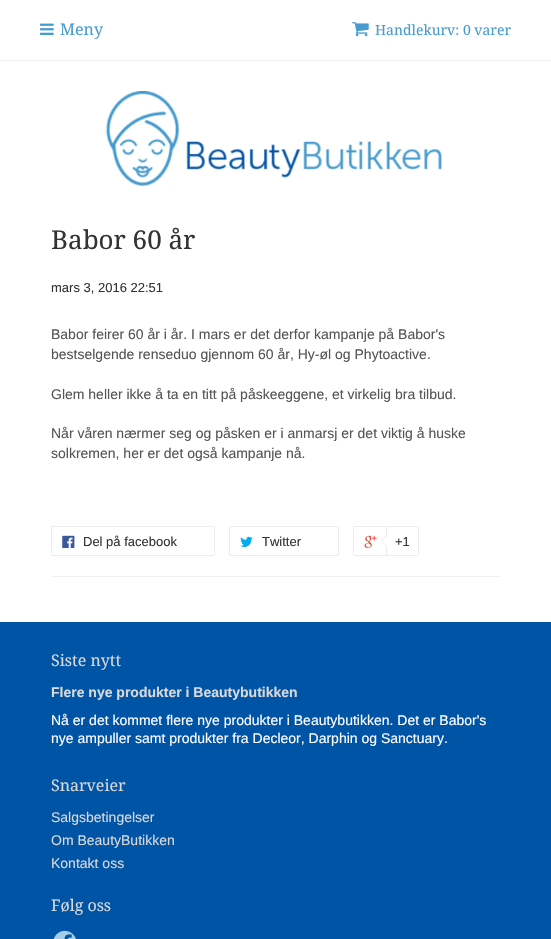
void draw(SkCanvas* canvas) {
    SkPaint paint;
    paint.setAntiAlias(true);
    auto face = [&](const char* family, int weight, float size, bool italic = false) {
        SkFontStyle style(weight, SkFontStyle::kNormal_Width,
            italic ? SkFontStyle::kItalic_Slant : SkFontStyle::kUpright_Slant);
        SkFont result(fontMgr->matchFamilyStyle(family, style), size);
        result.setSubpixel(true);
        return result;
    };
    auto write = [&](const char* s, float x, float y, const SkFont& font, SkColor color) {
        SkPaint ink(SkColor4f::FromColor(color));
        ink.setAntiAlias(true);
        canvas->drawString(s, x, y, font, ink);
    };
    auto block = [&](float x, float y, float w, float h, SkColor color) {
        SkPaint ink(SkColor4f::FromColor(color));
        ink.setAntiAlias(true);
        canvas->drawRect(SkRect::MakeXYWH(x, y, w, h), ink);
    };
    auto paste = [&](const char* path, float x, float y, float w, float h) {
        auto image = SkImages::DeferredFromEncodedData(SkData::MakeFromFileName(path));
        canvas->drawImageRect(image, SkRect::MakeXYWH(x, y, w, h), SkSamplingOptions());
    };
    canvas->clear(SK_ColorWHITE);
    block(0, 60, 551, 1, SkColorSetRGB(240, 240, 240));
    paste("pic1.png", 40, 23, 14, 12);
    auto kFont1 = face("Droid Serif", 400, 16);
    write("Meny", 60, 35, kFont1, SkColorSetRGB(71, 156, 207));
    paste("pic2.png", 352, 22, 17, 15);
    auto kFont2 = face("Droid Serif", 400, 14);
    write("Handlekurv: 0 varer", 375, 35, kFont2, SkColorSetRGB(71, 156, 207));
    paste("pic3.png", 106, 91, 336, 95);
    auto kFont3 = face("Droid Serif", 400, 26);
    write("Babor 60 år", 51, 249, kFont3, SkColorSetRGB(51, 51, 51));
    auto kFont4 = face("Liberation Sans", 400, 13);
    write("mars 3, 2016 22:51", 51, 292, kFont4, SkColorSetRGB(51, 51, 51));
    auto kFont5 = face("Liberation Sans", 400, 14);
    write("Babor feirer 60 år i år. I mars er det derfor kampanje på Babor's", 51, 339, kFont5, SkColorSetRGB(85, 85, 85));
    write("bestselgende renseduo gjennom 60 år, Hy-øl og Phytoactive.", 51, 359, kFont5, SkColorSetRGB(85, 85, 85));
    write("Glem heller ikke å ta en titt på påskeeggene, et virkelig bra tilbud.", 51, 399, kFont5, SkColorSetRGB(85, 85, 85));
    write("Når våren nærmer seg og påsken er i anmarsj er det viktig å huske", 51, 438, kFont5, SkColorSetRGB(85, 85, 85));
    write("solkremen, her er det også kampanje nå.", 51, 458, kFont5, SkColorSetRGB(85, 85, 85));
    paint.setStyle(SkPaint::kStroke_Style);
    paint.setStrokeWidth(1);
    paint.setColor(SkColorSetRGB(236, 236, 236));
    canvas->drawRoundRect(SkRect::MakeXYWH(51.5f, 526.5f, 163, 29), 1.5f, 1.5f, paint);
    paste("pic4.png", 62, 535, 13, 13);
    write("Del på facebook", 83, 546, kFont4, SkColorSetRGB(51, 51, 51));
    canvas->drawRoundRect(SkRect::MakeXYWH(229.5f, 526.5f, 109, 29), 1.5f, 1.5f, paint);
    paste("pic5.png", 240, 536, 13, 11);
    write("Twitter", 262, 546, kFont4, SkColorSetRGB(51, 51, 51));
    canvas->drawRoundRect(SkRect::MakeXYWH(353.5f, 526.5f, 64, 29), 1.5f, 1.5f, paint);
    paste("pic6.png", 364, 535, 13, 13);
    paint.setStyle(SkPaint::kFill_Style);
    paint.setColor(SK_ColorWHITE);
    canvas->drawPath(SkPathBuilder().moveTo(386.5f, 526.5f).lineTo(417, 526.5f).cubicTo(418, 526.5f, 418.5f, 527, 418.5f, 528).lineTo(418.5f, 554).cubicTo(418.5f, 555, 418, 555.5f, 417, 555.5f).lineTo(386.5f, 555.5f).close().detach(), paint);
    paint.setStyle(SkPaint::kStroke_Style);
    paint.setColor(SkColorSetRGB(236, 236, 236));
    canvas->drawPath(SkPathBuilder().moveTo(386.5f, 526.5f).lineTo(417, 526.5f).cubicTo(418, 526.5f, 418.5f, 527, 418.5f, 528).lineTo(418.5f, 554).cubicTo(418.5f, 555, 418, 555.5f, 417, 555.5f).lineTo(386.5f, 555.5f).close().detach(), paint);
    paint.setStyle(SkPaint::kFill_Style);
    canvas->drawPath(SkPathBuilder().moveTo(387, 535).lineTo(387, 547).lineTo(381, 541).close().detach(), paint);
    paint.setColor(SK_ColorWHITE);
    canvas->drawPath(SkPathBuilder().moveTo(388, 535).lineTo(388, 547).lineTo(382, 541).close().detach(), paint);
    write("+1", 395, 546, kFont4, SkColorSetRGB(51, 51, 51));
    block(51, 576, 450, 1, SkColorSetRGB(240, 240, 240));
    block(0, 622, 551, 317, SkColorSetRGB(0, 84, 166));
    write("Siste nytt", 51, 666, kFont1, SkColorSetRGB(217, 217, 217));
    auto kFont6 = face("Liberation Sans", 700, 14);
    write("Flere nye produkter i Beautybutikken", 51, 697, kFont6, SkColorSetRGB(217, 217, 217));
    write("Nå er det kommet flere nye produkter i Beautybutikken. Det er Babor's", 51, 725, kFont5, SK_ColorWHITE);
    write("nye ampuller samt produkter fra Decleor, Darphin og Sanctuary.", 51, 743, kFont5, SK_ColorWHITE);
    write("Snarveier", 51, 791, kFont1, SkColorSetRGB(217, 217, 217));
    write("Salgsbetingelser", 51, 822, kFont5, SkColorSetRGB(217, 217, 217));
    write("Om BeautyButikken", 51, 845, kFont5, SkColorSetRGB(217, 217, 217));
    write("Kontakt oss", 51, 868, kFont5, SkColorSetRGB(217, 217, 217));
    write("Følg oss", 51, 911, kFont1, SkColorSetRGB(217, 217, 217));
    paste("pic7.png", 53, 930, 23, 9);
}
